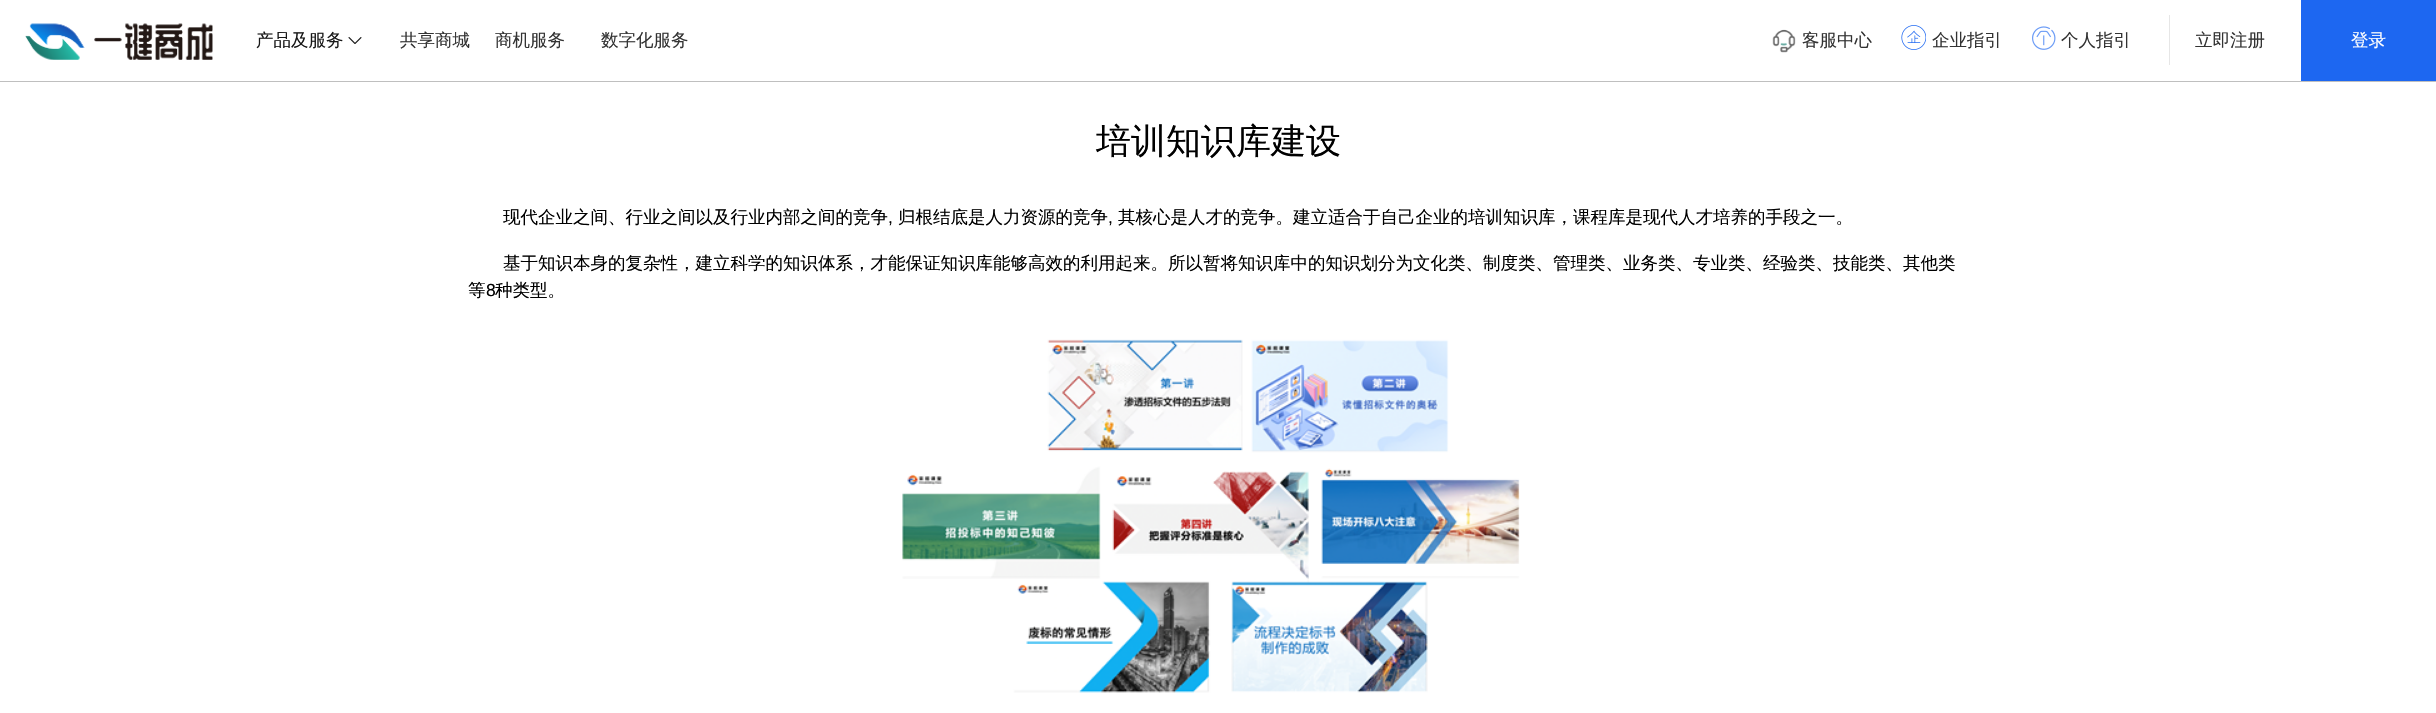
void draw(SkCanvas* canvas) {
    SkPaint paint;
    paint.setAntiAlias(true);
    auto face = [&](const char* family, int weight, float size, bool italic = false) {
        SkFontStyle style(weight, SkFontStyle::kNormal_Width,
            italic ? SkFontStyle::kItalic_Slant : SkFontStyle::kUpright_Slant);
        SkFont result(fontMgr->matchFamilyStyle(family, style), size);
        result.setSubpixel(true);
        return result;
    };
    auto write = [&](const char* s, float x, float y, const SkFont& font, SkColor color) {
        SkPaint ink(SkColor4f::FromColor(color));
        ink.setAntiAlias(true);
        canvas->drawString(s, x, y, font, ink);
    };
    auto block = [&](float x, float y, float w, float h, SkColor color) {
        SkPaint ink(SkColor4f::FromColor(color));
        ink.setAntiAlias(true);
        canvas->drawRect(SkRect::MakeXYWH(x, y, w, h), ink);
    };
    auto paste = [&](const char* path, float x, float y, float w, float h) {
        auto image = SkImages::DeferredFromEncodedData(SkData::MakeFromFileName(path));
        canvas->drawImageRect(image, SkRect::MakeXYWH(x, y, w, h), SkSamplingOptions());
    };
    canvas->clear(SK_ColorWHITE);
    block(0, 81, 2436, 1, SkColorSetRGB(191, 191, 191));
    paste("pic1.png", 25, 23, 188, 37);
    auto kFont1 = face("WenQuanYi Zen Hei", 500, 17.5f);
    write("产品及服务", 256, 46, kFont1, SkColorSetRGB(24, 24, 24));
    paste("pic2.png", 348, 37, 14, 7);
    write("共享商城", 400, 46, kFont1, SkColorSetRGB(51, 51, 51));
    write("商机服务", 495, 46, kFont1, SkColorSetRGB(51, 51, 51));
    write("数字化服务", 601, 46, kFont1, SkColorSetRGB(51, 51, 51));
    block(2169, 15, 1, 50, SkColorSetRGB(230, 230, 230));
    paste("pic3.png", 1772, 29, 24, 24);
    write("客服中心", 1802, 46, kFont1, SkColorSetRGB(51, 51, 51));
    paste("pic4.png", 1901, 25, 25, 25);
    write("企业指引", 1932, 46, kFont1, SkColorSetRGB(51, 51, 51));
    paste("pic5.png", 2032, 26, 24, 24);
    write("个人指引", 2061, 46, kFont1, SkColorSetRGB(51, 51, 51));
    write("立即注册", 2195, 46, kFont1, SkColorSetRGB(51, 51, 51));
    block(2301, 0, 135, 81, SkColorSetRGB(29, 103, 241));
    write("登录", 2351, 46, kFont1, SK_ColorWHITE);
    auto kFont2 = face("WenQuanYi Zen Hei", 500, 35);
    write("培训知识库建设", 1096, 153, kFont2, SK_ColorBLACK);
    write("现代企业之间、行业之间以及行业内部之间的竞争", 503, 223, kFont1, SK_ColorBLACK);
    auto kFont3 = face("Liberation Sans", 400, 17.5f);
    write(",", 888, 223, kFont3, SK_ColorBLACK);
    write("归根结底是人力资源的竞争", 898, 223, kFont1, SK_ColorBLACK);
    write(",", 1108, 223, kFont3, SK_ColorBLACK);
    write("其核心是人才的竞争。建立适合于自己企业的培训知识库，课程库是现代人才培养的手段之一。", 1118, 223, kFont1, SK_ColorBLACK);
    write("基于知识本身的复杂性，建立科学的知识体系，才能保证知识库能够高效的利用起来。所以暂将知识库中的知识划分为文化类、制度类、管理类、业务类、专业类、经验类、技能类、其他类", 503, 269, kFont1, SK_ColorBLACK);
    write("等", 468, 296, kFont1, SK_ColorBLACK);
    write("8", 486, 296, kFont3, SK_ColorBLACK);
    write("种类型。", 495, 296, kFont1, SK_ColorBLACK);
    paste("pic6.png", 902, 339, 618, 354);
}
